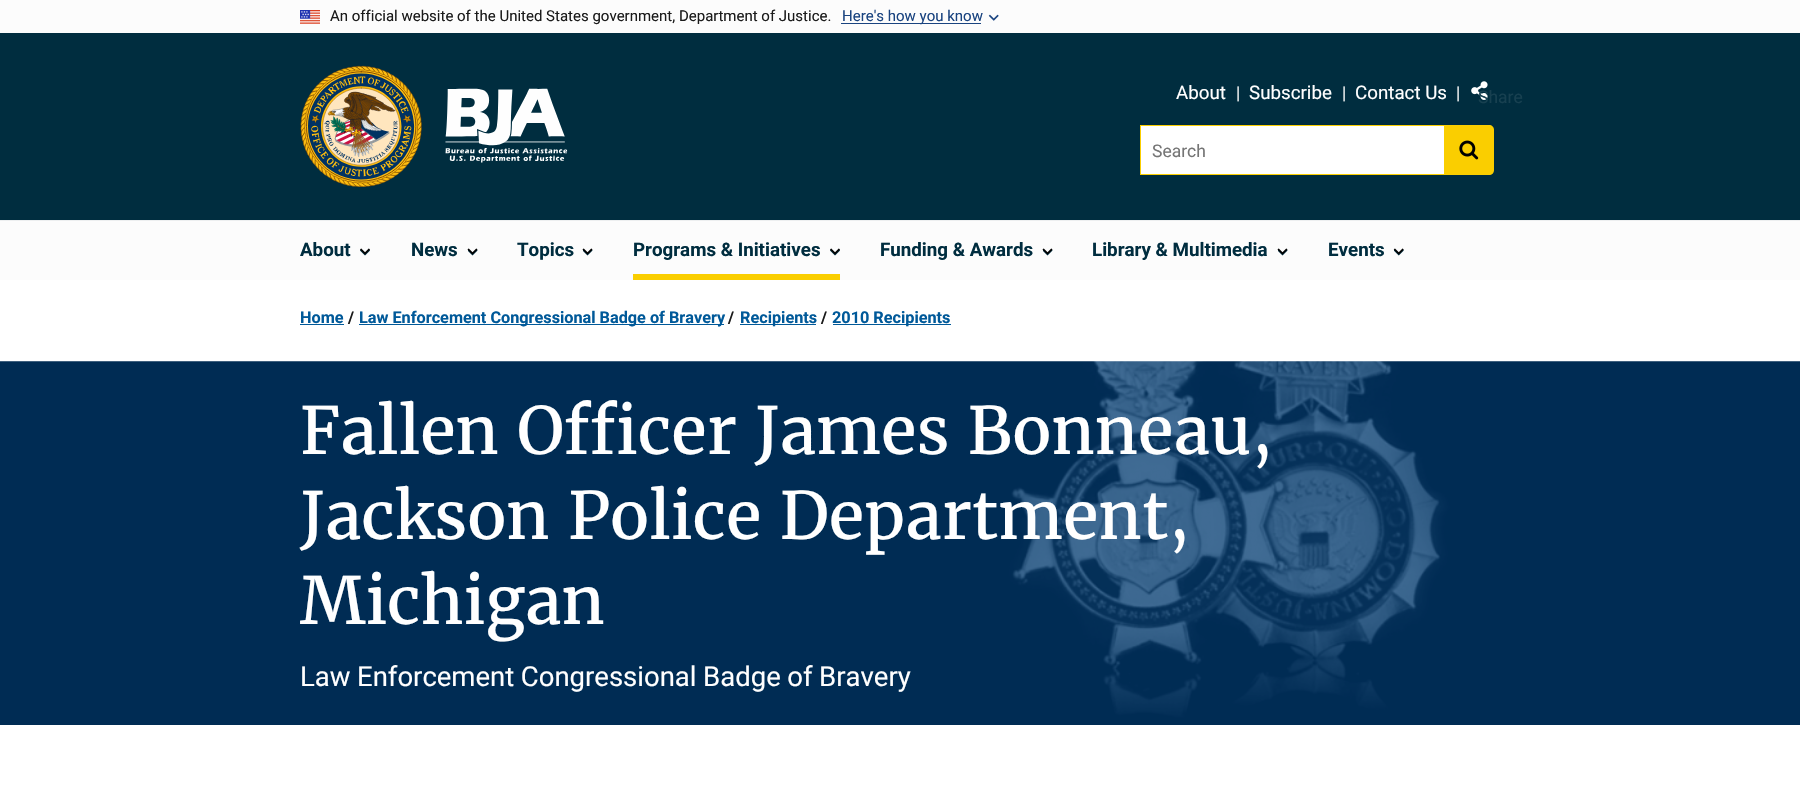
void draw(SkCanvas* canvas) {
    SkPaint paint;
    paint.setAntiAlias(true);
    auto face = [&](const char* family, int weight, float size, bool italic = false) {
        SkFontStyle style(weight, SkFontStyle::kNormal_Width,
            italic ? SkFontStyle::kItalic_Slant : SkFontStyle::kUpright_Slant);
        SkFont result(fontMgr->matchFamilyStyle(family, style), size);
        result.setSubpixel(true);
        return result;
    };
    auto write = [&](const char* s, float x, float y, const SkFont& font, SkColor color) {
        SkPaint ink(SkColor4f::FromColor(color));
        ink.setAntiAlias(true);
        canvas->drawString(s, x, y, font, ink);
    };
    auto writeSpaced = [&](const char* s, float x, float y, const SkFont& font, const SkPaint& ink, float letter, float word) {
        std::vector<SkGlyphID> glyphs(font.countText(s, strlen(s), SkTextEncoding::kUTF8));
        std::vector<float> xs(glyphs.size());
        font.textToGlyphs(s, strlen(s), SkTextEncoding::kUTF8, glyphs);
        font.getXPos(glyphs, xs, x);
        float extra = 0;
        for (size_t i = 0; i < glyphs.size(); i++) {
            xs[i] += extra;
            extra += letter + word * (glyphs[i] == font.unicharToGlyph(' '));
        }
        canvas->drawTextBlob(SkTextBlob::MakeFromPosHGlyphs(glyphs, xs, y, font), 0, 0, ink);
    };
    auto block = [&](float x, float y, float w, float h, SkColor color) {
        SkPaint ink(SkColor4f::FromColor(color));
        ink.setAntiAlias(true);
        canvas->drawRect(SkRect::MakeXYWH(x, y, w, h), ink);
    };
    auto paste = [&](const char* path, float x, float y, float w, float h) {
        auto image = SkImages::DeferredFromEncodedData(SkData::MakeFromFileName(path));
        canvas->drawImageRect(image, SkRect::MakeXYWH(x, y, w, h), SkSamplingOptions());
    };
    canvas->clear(SK_ColorWHITE);
    block(0, 0, 1800, 33, SkColorSetRGB(252, 252, 252));
    paste("pic1.png", 300, 10, 20, 14);
    auto kFont1 = face("Roboto", 400, 15);
    write("An official website of the United States government, Department of Justice.", 330, 21, kFont1, SkColorSetRGB(27, 27, 27));
    block(841, 23, 140, 1, SkColorSetRGB(26, 68, 128));
    write("Here's how you know", 842, 21, kFont1, SkColorSetRGB(26, 68, 128));
    paste("pic2.png", 988, 14, 11, 7);
    block(0, 33, 1800, 187, SkColorSetRGB(0, 45, 63));
    paste("pic3.png", 300, 65, 122, 122);
    paste("pic4.png", 445, 88, 123, 75);
    block(0, 221, 1800, 59, SkColorSetRGB(252, 252, 252));
    block(0, 220, 1800, 1, SkColorSetRGB(237, 239, 240));
    auto kFont2 = face("Roboto", 400, 18.75f);
    write("About", 1176, 99, kFont2, SK_ColorWHITE);
    auto kFont3 = face("Roboto", 400, 17.5f);
    write("|", 1236, 99, kFont3, SkColorSetRGB(237, 239, 240));
    write("Subscribe", 1249, 99, kFont2, SK_ColorWHITE);
    write("|", 1342, 99, kFont3, SkColorSetRGB(237, 239, 240));
    write("Contact Us", 1355, 99, kFont2, SK_ColorWHITE);
    write("|", 1456, 99, kFont3, SkColorSetRGB(237, 239, 240));
    paste("pic5.png", 1471, 81, 17, 19);
    write("Share", 1478, 103, kFont3, SkColorSetRGB(23, 64, 80));
    block(1141, 126, 303, 48, SK_ColorWHITE);
    block(1140, 125, 304, 1, SkColorSetRGB(250, 206, 0));
    block(1140, 174, 304, 1, SkColorSetRGB(250, 206, 0));
    block(1140, 125, 1, 50, SkColorSetRGB(250, 206, 0));
    write("Search", 1152, 157, kFont3, SkColorSetRGB(117, 117, 117));
    paint.setColor(SkColorSetRGB(250, 206, 0));
    canvas->drawPath(SkPathBuilder().moveTo(1444, 125).lineTo(1489, 125).cubicTo(1492, 125, 1494, 127, 1494, 130).lineTo(1494, 170).cubicTo(1494, 173, 1492, 175, 1489, 175).lineTo(1444, 175).close().detach(), paint);
    paste("pic6.png", 1459, 140, 20, 20);
    paste("pic7.png", 360, 249, 10, 7);
    auto kFont4 = face("Roboto", 700, 18.75f);
    write("About", 300, 256, kFont4, SkColorSetRGB(0, 45, 63));
    paste("pic8.png", 360, 248, 10, 7);
    paste("pic9.png", 468, 249, 10, 7);
    write("News", 411, 256, kFont4, SkColorSetRGB(0, 45, 63));
    paste("pic10.png", 467, 248, 11, 7);
    paste("pic9.png", 583, 249, 10, 7);
    write("Topics", 517, 256, kFont4, SkColorSetRGB(0, 45, 63));
    paste("pic10.png", 582, 248, 11, 7);
    paste("pic7.png", 830, 249, 10, 7);
    write("Programs & Initiatives", 633, 256, kFont4, SkColorSetRGB(0, 45, 63));
    paste("pic8.png", 830, 248, 10, 7);
    block(633, 274, 207, 6, SkColorSetRGB(250, 206, 0));
    paste("pic9.png", 1043, 249, 10, 7);
    write("Funding & Awards", 880, 256, kFont4, SkColorSetRGB(0, 45, 63));
    paste("pic10.png", 1042, 248, 11, 7);
    paste("pic9.png", 1278, 249, 10, 7);
    write("Library & Multimedia", 1092, 256, kFont4, SkColorSetRGB(0, 45, 63));
    paste("pic10.png", 1277, 248, 11, 7);
    paste("pic11.png", 1394, 249, 10, 7);
    write("Events", 1328, 256, kFont4, SkColorSetRGB(0, 45, 63));
    paste("pic12.png", 1393, 248, 11, 7);
    auto kFont5 = face("Roboto", 700, 16.25f);
    write("Home", 300, 323, kFont5, SkColorSetRGB(0, 89, 153));
    block(300, 324, 44, 1, SkColorSetRGB(0, 89, 153));
    write("/", 348, 323, kFont5, SkColorSetRGB(27, 27, 27));
    block(359, 324, 365, 1, SkColorSetRGB(0, 89, 153));
    write("Law Enforcement Congressional Badge of Bravery", 359, 323, kFont5, SkColorSetRGB(0, 89, 153));
    write("/", 728, 323, kFont5, SkColorSetRGB(27, 27, 27));
    block(740, 324, 76, 1, SkColorSetRGB(0, 89, 153));
    write("Recipients", 740, 323, kFont5, SkColorSetRGB(0, 89, 153));
    write("/", 821, 323, kFont5, SkColorSetRGB(27, 27, 27));
    block(833, 324, 118, 1, SkColorSetRGB(0, 89, 153));
    write("2010 Recipients", 832, 323, kFont5, SkColorSetRGB(0, 89, 153));
    paste("pic13.png", 0, 361, 1800, 364);
    auto kFont6 = face("Merriweather", 400, 65);
    write("Fallen Officer James Bonneau,", 300, 454, kFont6, SK_ColorWHITE);
    write("Jackson Police Department,", 300, 539, kFont6, SK_ColorWHITE);
    write("Michigan", 300, 624, kFont6, SK_ColorWHITE);
    auto kFont7 = face("Roboto", 400, 27.5f);
    paint.setColor(SK_ColorWHITE);
    writeSpaced("Law Enforcement Congressional Badge of Bravery", 300, 686, kFont7, paint, 0, -0.25f);
}
